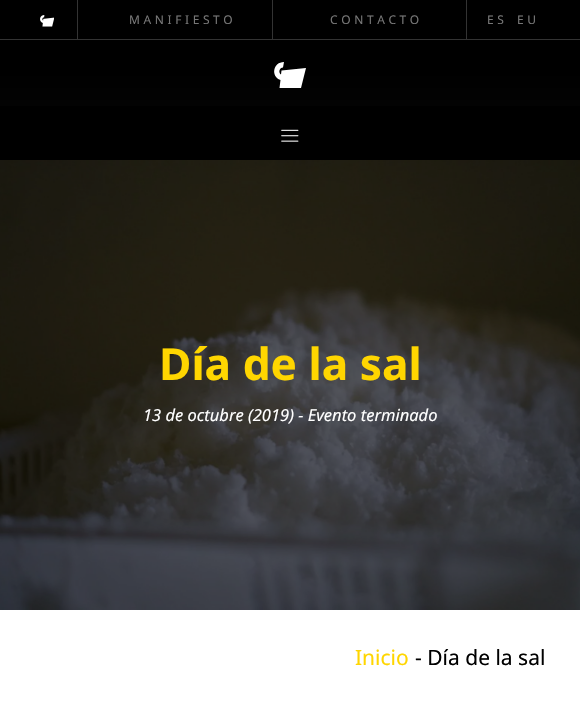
void draw(SkCanvas* canvas) {
    SkPaint paint;
    paint.setAntiAlias(true);
    auto face = [&](const char* family, int weight, float size, bool italic = false) {
        SkFontStyle style(weight, SkFontStyle::kNormal_Width,
            italic ? SkFontStyle::kItalic_Slant : SkFontStyle::kUpright_Slant);
        SkFont result(fontMgr->matchFamilyStyle(family, style), size);
        result.setSubpixel(true);
        return result;
    };
    auto write = [&](const char* s, float x, float y, const SkFont& font, SkColor color) {
        SkPaint ink(SkColor4f::FromColor(color));
        ink.setAntiAlias(true);
        canvas->drawString(s, x, y, font, ink);
    };
    auto writeSpaced = [&](const char* s, float x, float y, const SkFont& font, const SkPaint& ink, float letter, float word) {
        std::vector<SkGlyphID> glyphs(font.countText(s, strlen(s), SkTextEncoding::kUTF8));
        std::vector<float> xs(glyphs.size());
        font.textToGlyphs(s, strlen(s), SkTextEncoding::kUTF8, glyphs);
        font.getXPos(glyphs, xs, x);
        float extra = 0;
        for (size_t i = 0; i < glyphs.size(); i++) {
            xs[i] += extra;
            extra += letter + word * (glyphs[i] == font.unicharToGlyph(' '));
        }
        canvas->drawTextBlob(SkTextBlob::MakeFromPosHGlyphs(glyphs, xs, y, font), 0, 0, ink);
    };
    auto block = [&](float x, float y, float w, float h, SkColor color) {
        SkPaint ink(SkColor4f::FromColor(color));
        ink.setAntiAlias(true);
        canvas->drawRect(SkRect::MakeXYWH(x, y, w, h), ink);
    };
    auto paste = [&](const char* path, float x, float y, float w, float h) {
        auto image = SkImages::DeferredFromEncodedData(SkData::MakeFromFileName(path));
        canvas->drawImageRect(image, SkRect::MakeXYWH(x, y, w, h), SkSamplingOptions());
    };
    canvas->clear(SK_ColorWHITE);
    block(0, 0, 580, 39, SK_ColorBLACK);
    block(0, 39, 580, 1, SkColorSetRGB(51, 51, 51));
    block(77, 0, 1, 39, SkColorSetRGB(51, 51, 51));
    paste("pic1.png", 40, 15, 14, 12);
    block(272, 0, 1, 39, SkColorSetRGB(51, 51, 51));
    auto kFont1 = face("Noto Sans", 400, 12);
    paint.setColor(SkColorSetRGB(119, 119, 119));
    writeSpaced("MANIFIESTO", 129, 24, kFont1, paint, 3.6f, 0);
    block(466, 0, 1, 39, SkColorSetRGB(51, 51, 51));
    writeSpaced("CONTACTO", 330, 24, kFont1, paint, 3.6f, 0);
    writeSpaced("ES", 487, 24, kFont1, paint, 3.6f, 0);
    writeSpaced("EU", 517, 24, kFont1, paint, 3.6f, 0);
    {
        const SkColor colors[] = {SK_ColorBLACK, SK_ColorBLACK, SkColorSetRGB(3, 3, 3)};
        const float stops[] = {0, 0.45f, 1};
        const SkPoint ends[] = {{290, 40}, {290, 106}};
        paint.setShader(SkGradientShader::MakeLinear(ends, colors, stops, 3, SkTileMode::kClamp));
        paint.setAlpha(255);
    }
    canvas->drawRect(SkRect::MakeXYWH(0, 40, 580, 66), paint);
    paint.setShader(nullptr);
    paint.setColor(SK_ColorWHITE);
    canvas->drawPath(SkPathBuilder().moveTo(281.5f, 70.5f).lineTo(281, 74.5f).cubicTo(278, 72.5f, 279.5f, 67.5f, 283, 67.5f).lineTo(284, 62).cubicTo(273, 62, 270.5f, 76.5f, 280.5f, 80).lineTo(279.5f, 88).lineTo(301, 88).lineTo(306, 68).close().detach(), paint);
    block(0, 106, 580, 54, SK_ColorBLACK);
    paste("pic2.png", 281, 129, 18, 13);
    paste("pic3.png", 0, 160, 580, 450);
    auto kFont2 = face("Noto Sans", 700, 44.25f);
    write("Día de la sal", 159, 380, kFont2, SkColorSetRGB(255, 214, 0));
    auto kFont3 = face("Noto Sans", 400, 16.5f, true);
    write("13 de octubre (2019) - Evento terminado", 143, 421, kFont3, SK_ColorWHITE);
    auto kFont4 = face("Noto Sans", 400, 21);
    write("Inicio", 355, 665, kFont4, SkColorSetRGB(255, 214, 0));
    write("- Día de la sal", 415, 665, kFont4, SK_ColorBLACK);
}
